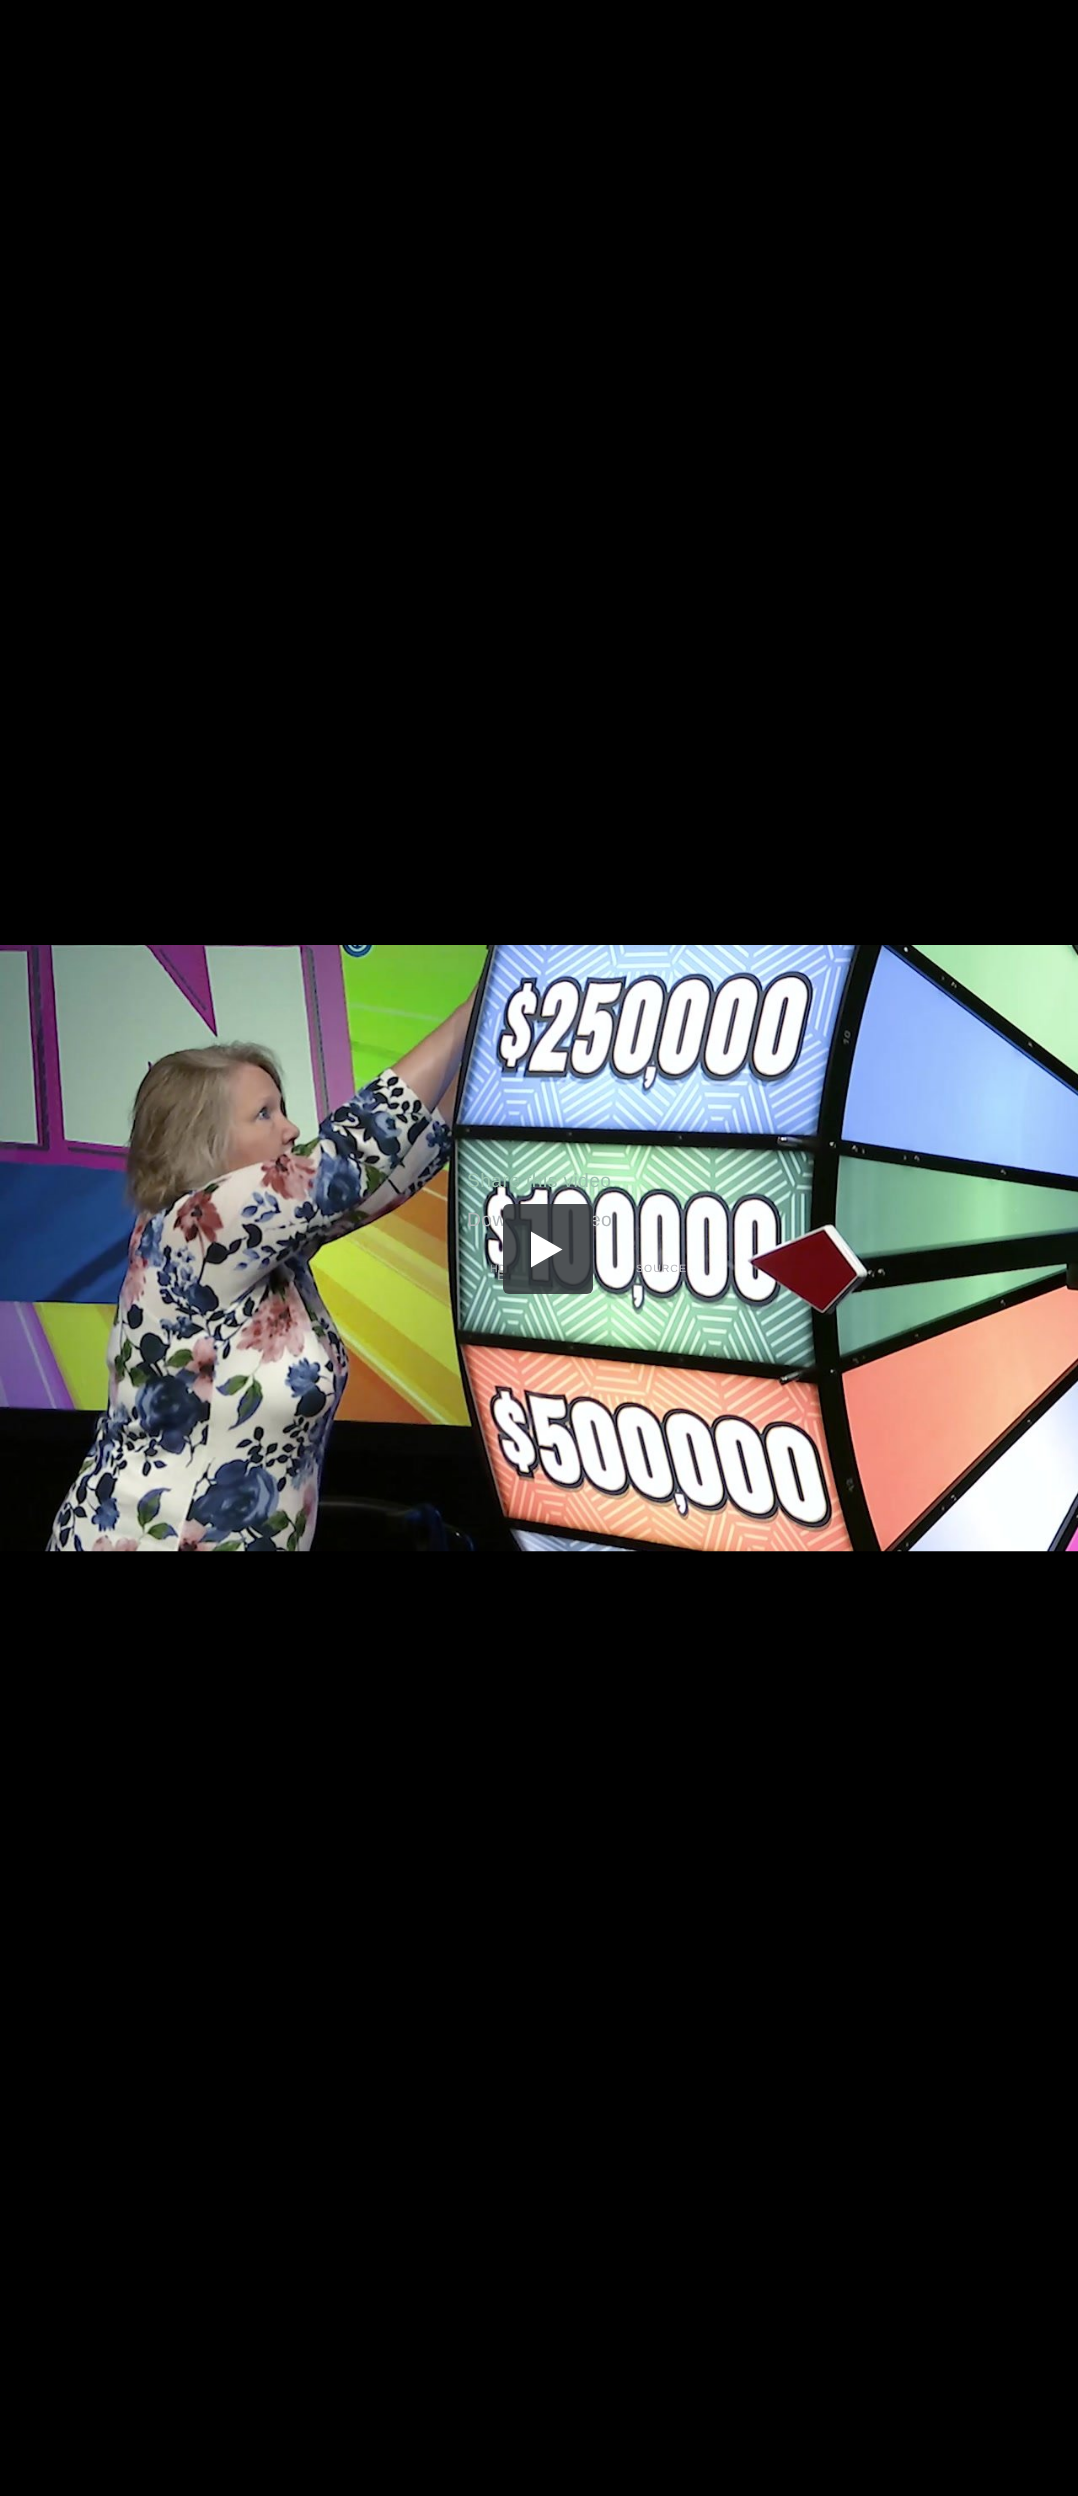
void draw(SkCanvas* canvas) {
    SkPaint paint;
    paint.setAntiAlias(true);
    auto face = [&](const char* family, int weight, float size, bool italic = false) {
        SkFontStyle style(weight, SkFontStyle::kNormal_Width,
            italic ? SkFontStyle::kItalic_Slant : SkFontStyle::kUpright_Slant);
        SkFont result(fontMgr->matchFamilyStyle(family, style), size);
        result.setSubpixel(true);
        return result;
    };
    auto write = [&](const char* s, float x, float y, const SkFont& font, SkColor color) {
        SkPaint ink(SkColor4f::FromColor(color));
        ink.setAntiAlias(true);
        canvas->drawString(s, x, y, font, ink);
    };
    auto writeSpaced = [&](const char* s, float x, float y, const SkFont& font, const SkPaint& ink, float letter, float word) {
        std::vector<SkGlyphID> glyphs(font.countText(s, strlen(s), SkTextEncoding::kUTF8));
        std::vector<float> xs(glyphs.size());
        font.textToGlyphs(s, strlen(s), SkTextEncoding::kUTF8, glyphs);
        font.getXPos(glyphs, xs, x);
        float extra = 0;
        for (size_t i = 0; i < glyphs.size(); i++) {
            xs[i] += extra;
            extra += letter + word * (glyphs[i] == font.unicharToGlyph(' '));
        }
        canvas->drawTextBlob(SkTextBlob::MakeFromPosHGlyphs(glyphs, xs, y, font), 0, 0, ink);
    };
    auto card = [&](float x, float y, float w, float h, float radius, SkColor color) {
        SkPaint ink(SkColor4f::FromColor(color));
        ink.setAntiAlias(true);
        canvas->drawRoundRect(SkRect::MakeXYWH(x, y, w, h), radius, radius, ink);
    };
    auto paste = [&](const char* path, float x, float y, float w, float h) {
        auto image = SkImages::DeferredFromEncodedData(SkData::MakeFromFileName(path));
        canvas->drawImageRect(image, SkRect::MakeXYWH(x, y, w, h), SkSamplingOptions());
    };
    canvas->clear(SK_ColorBLACK);
    paste("pic1.png", 0, 945, 1078, 607);
    auto kFont1 = face("Liberation Sans", 400, 19.25f);
    paint.setColor(SkColorSetRGB(156, 195, 175));
    writeSpaced("Share this video", 467, 1187, kFont1, paint, 0.4f, 0);
    auto kFont2 = face("Liberation Sans", 400, 14);
    write("E", 497, 1280, kFont2, SkColorSetRGB(167, 178, 176));
    paint.setColor(SkColorSetRGB(179, 184, 186));
    writeSpaced("Dow", 467, 1226, kFont1, paint, 0.4f, 0);
    writeSpaced("eo", 590, 1226, kFont1, paint, 0.4f, 0);
    auto kFont3 = face("Liberation Sans", 400, 10.5f);
    paint.setColor(SkColorSetRGB(160, 168, 170));
    writeSpaced("HD", 490, 1272, kFont3, paint, 1, 0);
    card(503, 1204, 90, 90, 6, SkColorSetARGB(217, 47, 52, 55));
    paint.setColor(SK_ColorWHITE);
    canvas->drawPath(SkPathBuilder().moveTo(531, 1231.5f).lineTo(531, 1267.5f).lineTo(562.5f, 1249.5f).close().detach(), paint);
    paint.setColor(SkColorSetRGB(185, 185, 190));
    writeSpaced("SOURCE", 636, 1272, kFont3, paint, 1, 0);
}
